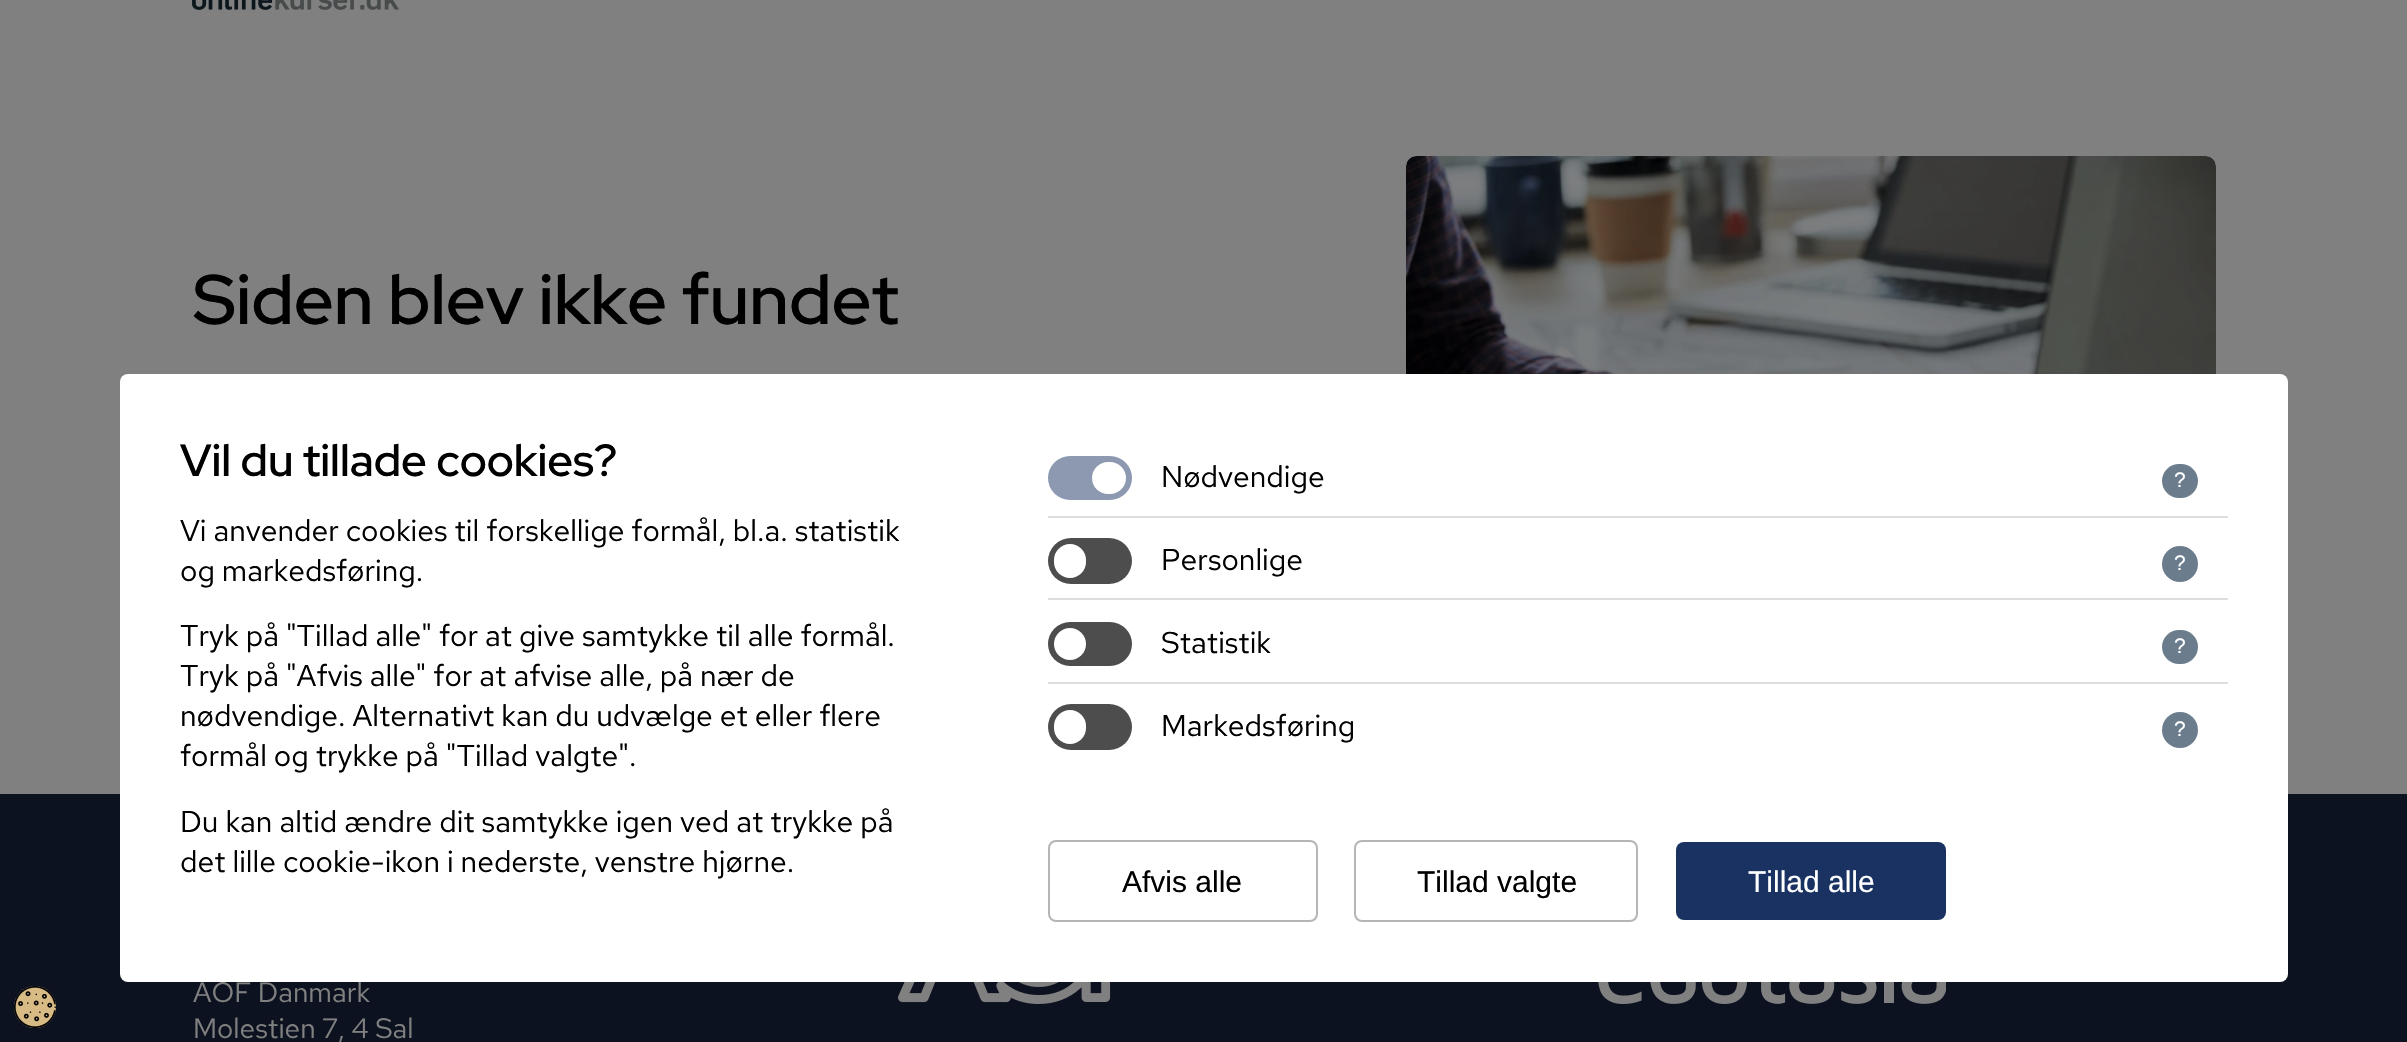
void draw(SkCanvas* canvas) {
    SkPaint paint;
    paint.setAntiAlias(true);
    auto face = [&](const char* family, int weight, float size, bool italic = false) {
        SkFontStyle style(weight, SkFontStyle::kNormal_Width,
            italic ? SkFontStyle::kItalic_Slant : SkFontStyle::kUpright_Slant);
        SkFont result(fontMgr->matchFamilyStyle(family, style), size);
        result.setSubpixel(true);
        return result;
    };
    auto write = [&](const char* s, float x, float y, const SkFont& font, SkColor color) {
        SkPaint ink(SkColor4f::FromColor(color));
        ink.setAntiAlias(true);
        canvas->drawString(s, x, y, font, ink);
    };
    auto block = [&](float x, float y, float w, float h, SkColor color) {
        SkPaint ink(SkColor4f::FromColor(color));
        ink.setAntiAlias(true);
        canvas->drawRect(SkRect::MakeXYWH(x, y, w, h), ink);
    };
    auto card = [&](float x, float y, float w, float h, float radius, SkColor color) {
        SkPaint ink(SkColor4f::FromColor(color));
        ink.setAntiAlias(true);
        canvas->drawRoundRect(SkRect::MakeXYWH(x, y, w, h), radius, radius, ink);
    };
    auto paste = [&](const char* path, float x, float y, float w, float h) {
        auto image = SkImages::DeferredFromEncodedData(SkData::MakeFromFileName(path));
        canvas->drawImageRect(image, SkRect::MakeXYWH(x, y, w, h), SkSamplingOptions());
    };
    canvas->clear(SkColorSetRGB(128, 128, 128));
    paste("pic1.png", 192, 0, 207, 10);
    auto kFont1 = face("Red Hat Display", 500, 70);
    write("Siden blev ikke fundet", 193, 324, kFont1, SK_ColorBLACK);
    paste("pic2.png", 1406, 156, 810, 218);
    block(0, 794, 2407, 248, SkColorSetRGB(12, 18, 31));
    auto kFont2 = face("Red Hat Text", 400, 28);
    write("AOF Danmark", 193, 1002, kFont2, SkColorSetRGB(128, 128, 128));
    card(120, 374, 2168, 608, 8, SK_ColorWHITE);
    auto kFont3 = face("Red Hat Display", 500, 45);
    write("Vil du tillade cookies?", 180, 476, kFont3, SK_ColorBLACK);
    auto kFont4 = face("Red Hat Text", 400, 30);
    write("Vi anvender cookies til forskellige formål, bl.a. statistik", 180, 541, kFont4, SK_ColorBLACK);
    write("og markedsføring.", 180, 581, kFont4, SK_ColorBLACK);
    write("Tryk på \"Tillad alle\" for at give samtykke til alle formål.", 180, 646, kFont4, SK_ColorBLACK);
    write("Tryk på \"Afvis alle\" for at afvise alle, på nær de", 180, 686, kFont4, SK_ColorBLACK);
    write("nødvendige. Alternativt kan du udvælge et eller flere", 180, 726, kFont4, SK_ColorBLACK);
    write("formål og trykke på \"Tillad valgte\".", 180, 766, kFont4, SK_ColorBLACK);
    write("Du kan altid ændre dit samtykke igen ved at trykke på", 180, 832, kFont4, SK_ColorBLACK);
    write("det lille cookie-ikon i nederste, venstre hjørne.", 180, 872, kFont4, SK_ColorBLACK);
    block(1048, 516, 1180, 2, SkColorSetRGB(221, 221, 221));
    card(1048, 456, 84, 44, 22, SkColorSetRGB(140, 153, 177));
    card(1092, 462, 34, 32, 16, SK_ColorWHITE);
    write("Nødvendige", 1161, 487, kFont4, SK_ColorBLACK);
    card(2162, 464, 36, 34, 17, SkColorSetRGB(107, 124, 141));
    auto kFont5 = face("Liberation Sans", 400, 21);
    write("?", 2174, 487, kFont5, SK_ColorWHITE);
    block(1048, 598, 1180, 2, SkColorSetRGB(221, 221, 221));
    card(1048, 538, 84, 46, 23, SkColorSetRGB(77, 77, 77));
    card(1054, 544, 32, 34, 16, SK_ColorWHITE);
    write("Personlige", 1161, 570, kFont4, SK_ColorBLACK);
    paint.setColor(SkColorSetRGB(107, 124, 141));
    canvas->drawCircle(2180, 564, 18, paint);
    write("?", 2174, 570, kFont5, SK_ColorWHITE);
    block(1048, 682, 1180, 2, SkColorSetRGB(221, 221, 221));
    card(1048, 622, 84, 44, 22, SkColorSetRGB(77, 77, 77));
    paint.setColor(SK_ColorWHITE);
    canvas->drawCircle(1070, 644, 16, paint);
    write("Statistik", 1161, 653, kFont4, SK_ColorBLACK);
    card(2162, 630, 36, 34, 17, SkColorSetRGB(107, 124, 141));
    write("?", 2174, 653, kFont5, SK_ColorWHITE);
    card(1048, 704, 84, 46, 23, SkColorSetRGB(77, 77, 77));
    card(1054, 710, 32, 34, 16, SK_ColorWHITE);
    write("Markedsføring", 1161, 736, kFont4, SK_ColorBLACK);
    paint.setColor(SkColorSetRGB(107, 124, 141));
    canvas->drawCircle(2180, 730, 18, paint);
    write("?", 2174, 736, kFont5, SK_ColorWHITE);
    paint.setStyle(SkPaint::kStroke_Style);
    paint.setStrokeWidth(2);
    paint.setColor(SkColorSetRGB(181, 181, 181));
    canvas->drawRoundRect(SkRect::MakeXYWH(1049, 841, 268, 80), 7, 7, paint);
    auto kFont6 = face("Liberation Sans", 400, 30);
    write("Afvis alle", 1122, 892, kFont6, SK_ColorBLACK);
    canvas->drawRoundRect(SkRect::MakeXYWH(1355, 841, 282, 80), 7, 7, paint);
    write("Tillad valgte", 1417, 892, kFont6, SK_ColorBLACK);
    card(1676, 842, 270, 78, 8, SkColorSetRGB(25, 50, 98));
    write("Tillad alle", 1748, 892, kFont6, SK_ColorWHITE);
    paint.setStyle(SkPaint::kFill_Style);
    paint.setColor(SkColorSetRGB(216, 186, 132));
    canvas->drawCircle(35, 1007, 21, paint);
    paste("pic3.png", 14, 986, 42, 42);
    write("Molestien 7, 4 Sal", 193, 1038, kFont2, SkColorSetRGB(128, 128, 128));
    paste("pic4.png", 898, 982, 213, 22);
    paste("pic5.png", 1598, 982, 348, 22);
}
